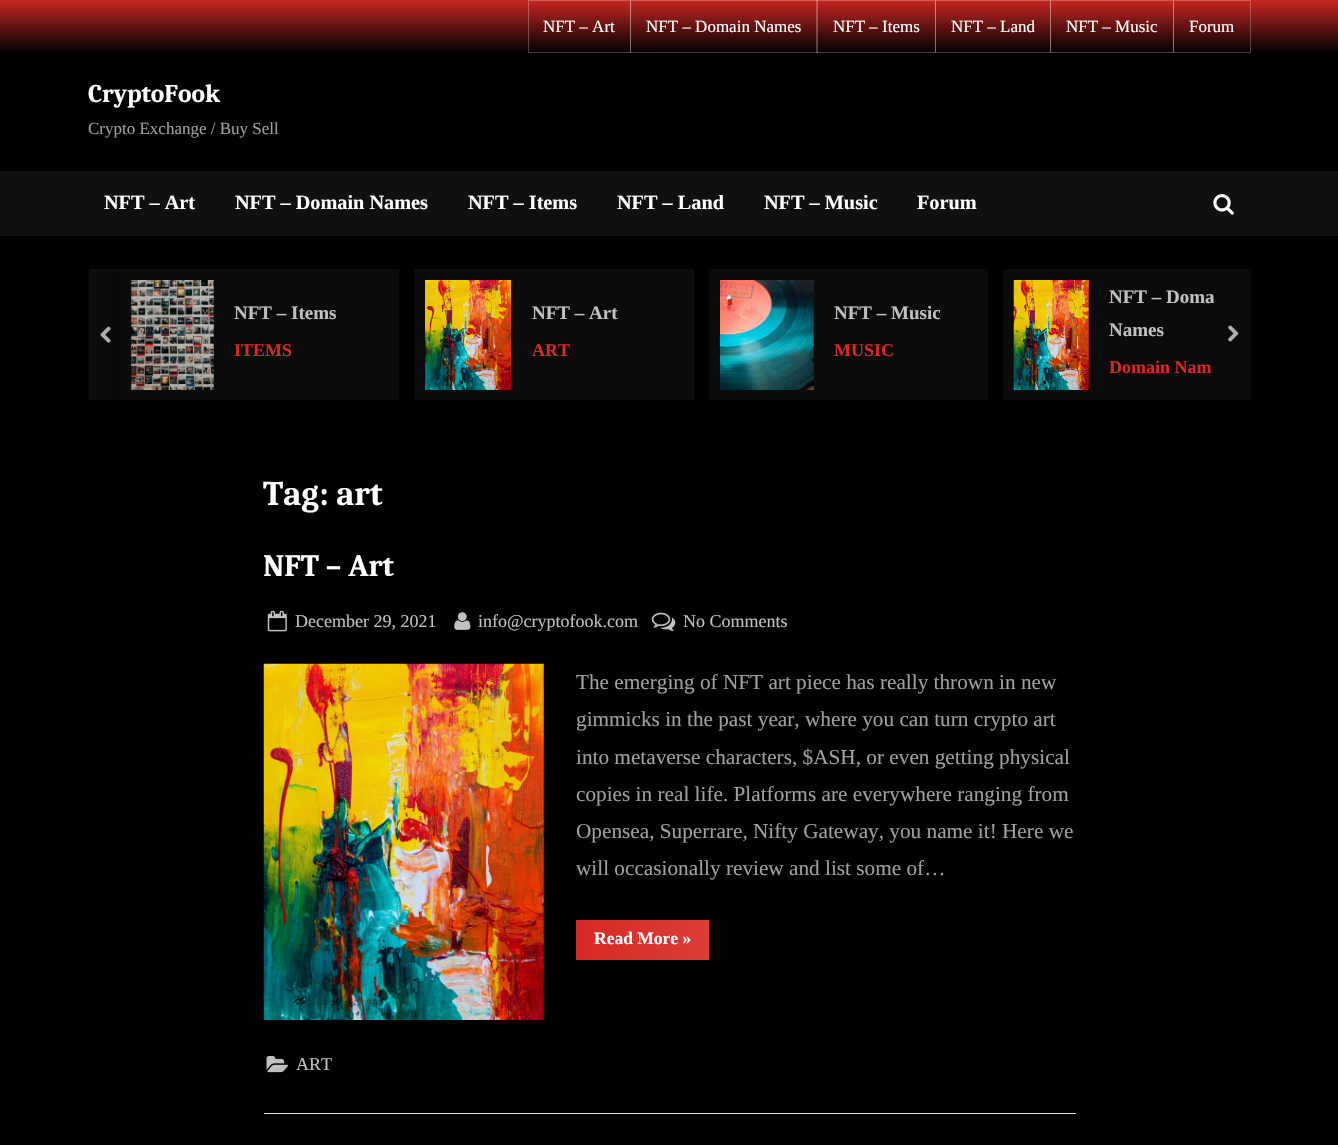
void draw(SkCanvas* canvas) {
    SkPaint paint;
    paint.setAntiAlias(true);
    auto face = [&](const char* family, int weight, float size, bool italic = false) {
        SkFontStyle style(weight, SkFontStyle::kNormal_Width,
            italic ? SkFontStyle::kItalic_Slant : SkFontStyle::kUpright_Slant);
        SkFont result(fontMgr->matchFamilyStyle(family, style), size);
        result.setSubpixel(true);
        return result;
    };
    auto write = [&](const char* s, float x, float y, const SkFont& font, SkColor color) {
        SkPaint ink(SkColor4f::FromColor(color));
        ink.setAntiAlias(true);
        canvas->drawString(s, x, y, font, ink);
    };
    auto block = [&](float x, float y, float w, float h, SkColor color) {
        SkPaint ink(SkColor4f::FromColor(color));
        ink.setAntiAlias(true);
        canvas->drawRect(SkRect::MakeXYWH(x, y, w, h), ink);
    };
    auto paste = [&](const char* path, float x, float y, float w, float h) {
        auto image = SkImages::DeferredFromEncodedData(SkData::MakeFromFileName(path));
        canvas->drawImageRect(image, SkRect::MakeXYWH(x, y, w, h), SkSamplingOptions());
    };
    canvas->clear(SK_ColorBLACK);
    block(105, 269, 15, 131, SkColorSetRGB(10, 10, 10));
    {
        const SkColor colors[] = {SK_ColorBLACK, SkColorSetRGB(198, 38, 33)};
        const float stops[] = {0, 1};
        const SkPoint ends[] = {{669, 53}, {669, 0}};
        paint.setShader(SkGradientShader::MakeLinear(ends, colors, stops, 2, SkTileMode::kClamp));
        paint.setAlpha(255);
    }
    canvas->drawRect(SkRect::MakeXYWH(0, 0, 1338, 52), paint);
    paint.setStyle(SkPaint::kStroke_Style);
    paint.setStrokeWidth(1);
    paint.setShader(nullptr);
    paint.setColor(SkColorSetARGB(64, 255, 255, 255));
    canvas->drawRect(SkRect::MakeXYWH(528.5f, 0.5f, 102, 52), paint);
    auto kFont1 = face("Liberation Serif", 400, 17);
    write("NFT – Art", 543, 32, kFont1, SK_ColorWHITE);
    canvas->drawRect(SkRect::MakeXYWH(630.5f, 0.5f, 187, 52), paint);
    write("NFT – Domain Names", 646, 32, kFont1, SK_ColorWHITE);
    canvas->drawRect(SkRect::MakeXYWH(816.5f, 0.5f, 119, 52), paint);
    write("NFT – Items", 833, 32, kFont1, SK_ColorWHITE);
    canvas->drawRect(SkRect::MakeXYWH(935.5f, 0.5f, 115, 52), paint);
    write("NFT – Land", 951, 32, kFont1, SK_ColorWHITE);
    canvas->drawRect(SkRect::MakeXYWH(1050.5f, 0.5f, 123, 52), paint);
    write("NFT – Music", 1066, 32, kFont1, SK_ColorWHITE);
    canvas->drawRect(SkRect::MakeXYWH(1173.5f, 0.5f, 77, 52), paint);
    write("Forum", 1189, 32, kFont1, SK_ColorWHITE);
    auto kFont2 = face("Caladea", 700, 25.5f);
    write("CryptoFook", 88, 102, kFont2, SK_ColorWHITE);
    write("Crypto Exchange / Buy Sell", 88, 134, kFont1, SkColorSetRGB(160, 160, 160));
    block(0, 171, 1338, 65, SkColorSetRGB(16, 16, 16));
    auto kFont3 = face("Liberation Serif", 700, 20.25f);
    write("NFT – Art", 104, 209, kFont3, SK_ColorWHITE);
    write("NFT – Domain Names", 235, 209, kFont3, SK_ColorWHITE);
    write("NFT – Items", 468, 209, kFont3, SK_ColorWHITE);
    write("NFT – Land", 617, 209, kFont3, SK_ColorWHITE);
    write("NFT – Music", 764, 209, kFont3, SK_ColorWHITE);
    write("Forum", 917, 209, kFont3, SK_ColorWHITE);
    paste("pic1.png", 1213, 194, 21, 21);
    block(89, 269, 16, 131, SkColorSetRGB(12, 12, 12));
    block(126, 269, 273, 131, SkColorSetRGB(11, 11, 11));
    block(120, 269, 6, 131, SkColorSetRGB(12, 12, 12));
    paste("pic2.png", 131, 280, 83, 110);
    canvas->save();
    canvas->clipRect(SkRect::MakeXYWH(234, 298, 102, 32));
    auto kFont4 = face("Liberation Serif", 700, 19);
    write("NFT – Items", 234, 319, kFont4, SkColorSetRGB(192, 192, 192));
    canvas->restore();
    auto kFont5 = face("Liberation Serif", 700, 18);
    write("ITEMS", 234, 356, kFont5, SkColorSetRGB(215, 41, 36));
    block(414, 269, 280, 131, SkColorSetRGB(11, 11, 11));
    paste("pic3.png", 425, 280, 86, 110);
    write("NFT – Art", 532, 319, kFont4, SkColorSetRGB(192, 192, 192));
    write("ART", 532, 356, kFont5, SkColorSetRGB(215, 41, 36));
    block(709, 269, 279, 131, SkColorSetRGB(11, 11, 11));
    paste("pic4.png", 720, 280, 94, 110);
    write("NFT – Music", 834, 319, kFont4, SkColorSetRGB(192, 192, 192));
    write("MUSIC", 834, 356, kFont5, SkColorSetRGB(215, 41, 36));
    block(1003, 269, 248, 131, SkColorSetRGB(11, 11, 11));
    paste("pic5.png", 1013, 280, 76, 110);
    write("NFT – Doma", 1109, 303, kFont4, SkColorSetRGB(192, 192, 192));
    write("Names", 1109, 336, kFont4, SkColorSetRGB(192, 192, 192));
    write("Domain Nam", 1109, 373, kFont5, SkColorSetRGB(215, 41, 36));
    paste("pic6.png", 100, 326, 11, 17);
    block(1214, 295, 2, 8, SkColorSetARGB(212, 12, 12, 12));
    paste("pic7.png", 1228, 325, 11, 17);
    auto kFont6 = face("Caladea", 700, 34.5f);
    write("Tag: art", 263, 505, kFont6, SK_ColorWHITE);
    block(264, 1113, 812, 1, SkColorSetRGB(225, 225, 225));
    auto kFont7 = face("Caladea", 700, 31);
    write("NFT – Art", 263, 576, kFont7, SK_ColorWHITE);
    paste("pic8.png", 267, 610, 20, 22);
    auto kFont8 = face("Liberation Serif", 400, 18);
    write("December 29, 2021", 295, 627, kFont8, SkColorSetRGB(192, 192, 192));
    paste("pic9.png", 454, 612, 17, 18);
    write("info@cryptofook.com", 478, 627, kFont8, SkColorSetRGB(192, 192, 192));
    paste("pic10.png", 651, 612, 25, 20);
    write("No Comments", 683, 627, kFont8, SkColorSetRGB(192, 192, 192));
    paste("pic11.png", 263, 663, 281, 357);
    auto kFont9 = face("Liberation Serif", 400, 21.25f);
    write("The emerging of NFT art piece has really thrown in new", 576, 689, kFont9, SkColorSetRGB(160, 160, 160));
    write("gimmicks in the past year, where you can turn crypto art", 576, 726, kFont9, SkColorSetRGB(160, 160, 160));
    write("into metaverse characters, $ASH, or even getting physical", 576, 764, kFont9, SkColorSetRGB(160, 160, 160));
    write("copies in real life. Platforms are everywhere ranging from", 576, 801, kFont9, SkColorSetRGB(160, 160, 160));
    write("Opensea, Superrare, Nifty Gateway, you name it! Here we", 576, 838, kFont9, SkColorSetRGB(160, 160, 160));
    write("will occasionally review and list some of…", 576, 875, kFont9, SkColorSetRGB(160, 160, 160));
    paint.setStyle(SkPaint::kFill_Style);
    {
        const SkColor colors[] = {SkColorSetRGB(215, 41, 36), SkColorSetRGB(219, 62, 58), SkColorSetRGB(215, 41, 36)};
        const float stops[] = {0, 0.51f, 1};
        const SkPoint ends[] = {{576, 940}, {841, 940}};
        paint.setShader(SkGradientShader::MakeLinear(ends, colors, stops, 3, SkTileMode::kClamp));
        paint.setAlpha(255);
    }
    canvas->drawRect(SkRect::MakeXYWH(576, 920, 133, 40), paint);
    auto kFont10 = face("Liberation Serif", 700, 17.5f);
    write("Read More »", 594, 944, kFont10, SK_ColorWHITE);
    paste("pic12.png", 266, 1056, 22, 17);
    write("ART", 296, 1070, kFont8, SkColorSetRGB(192, 192, 192));
}
